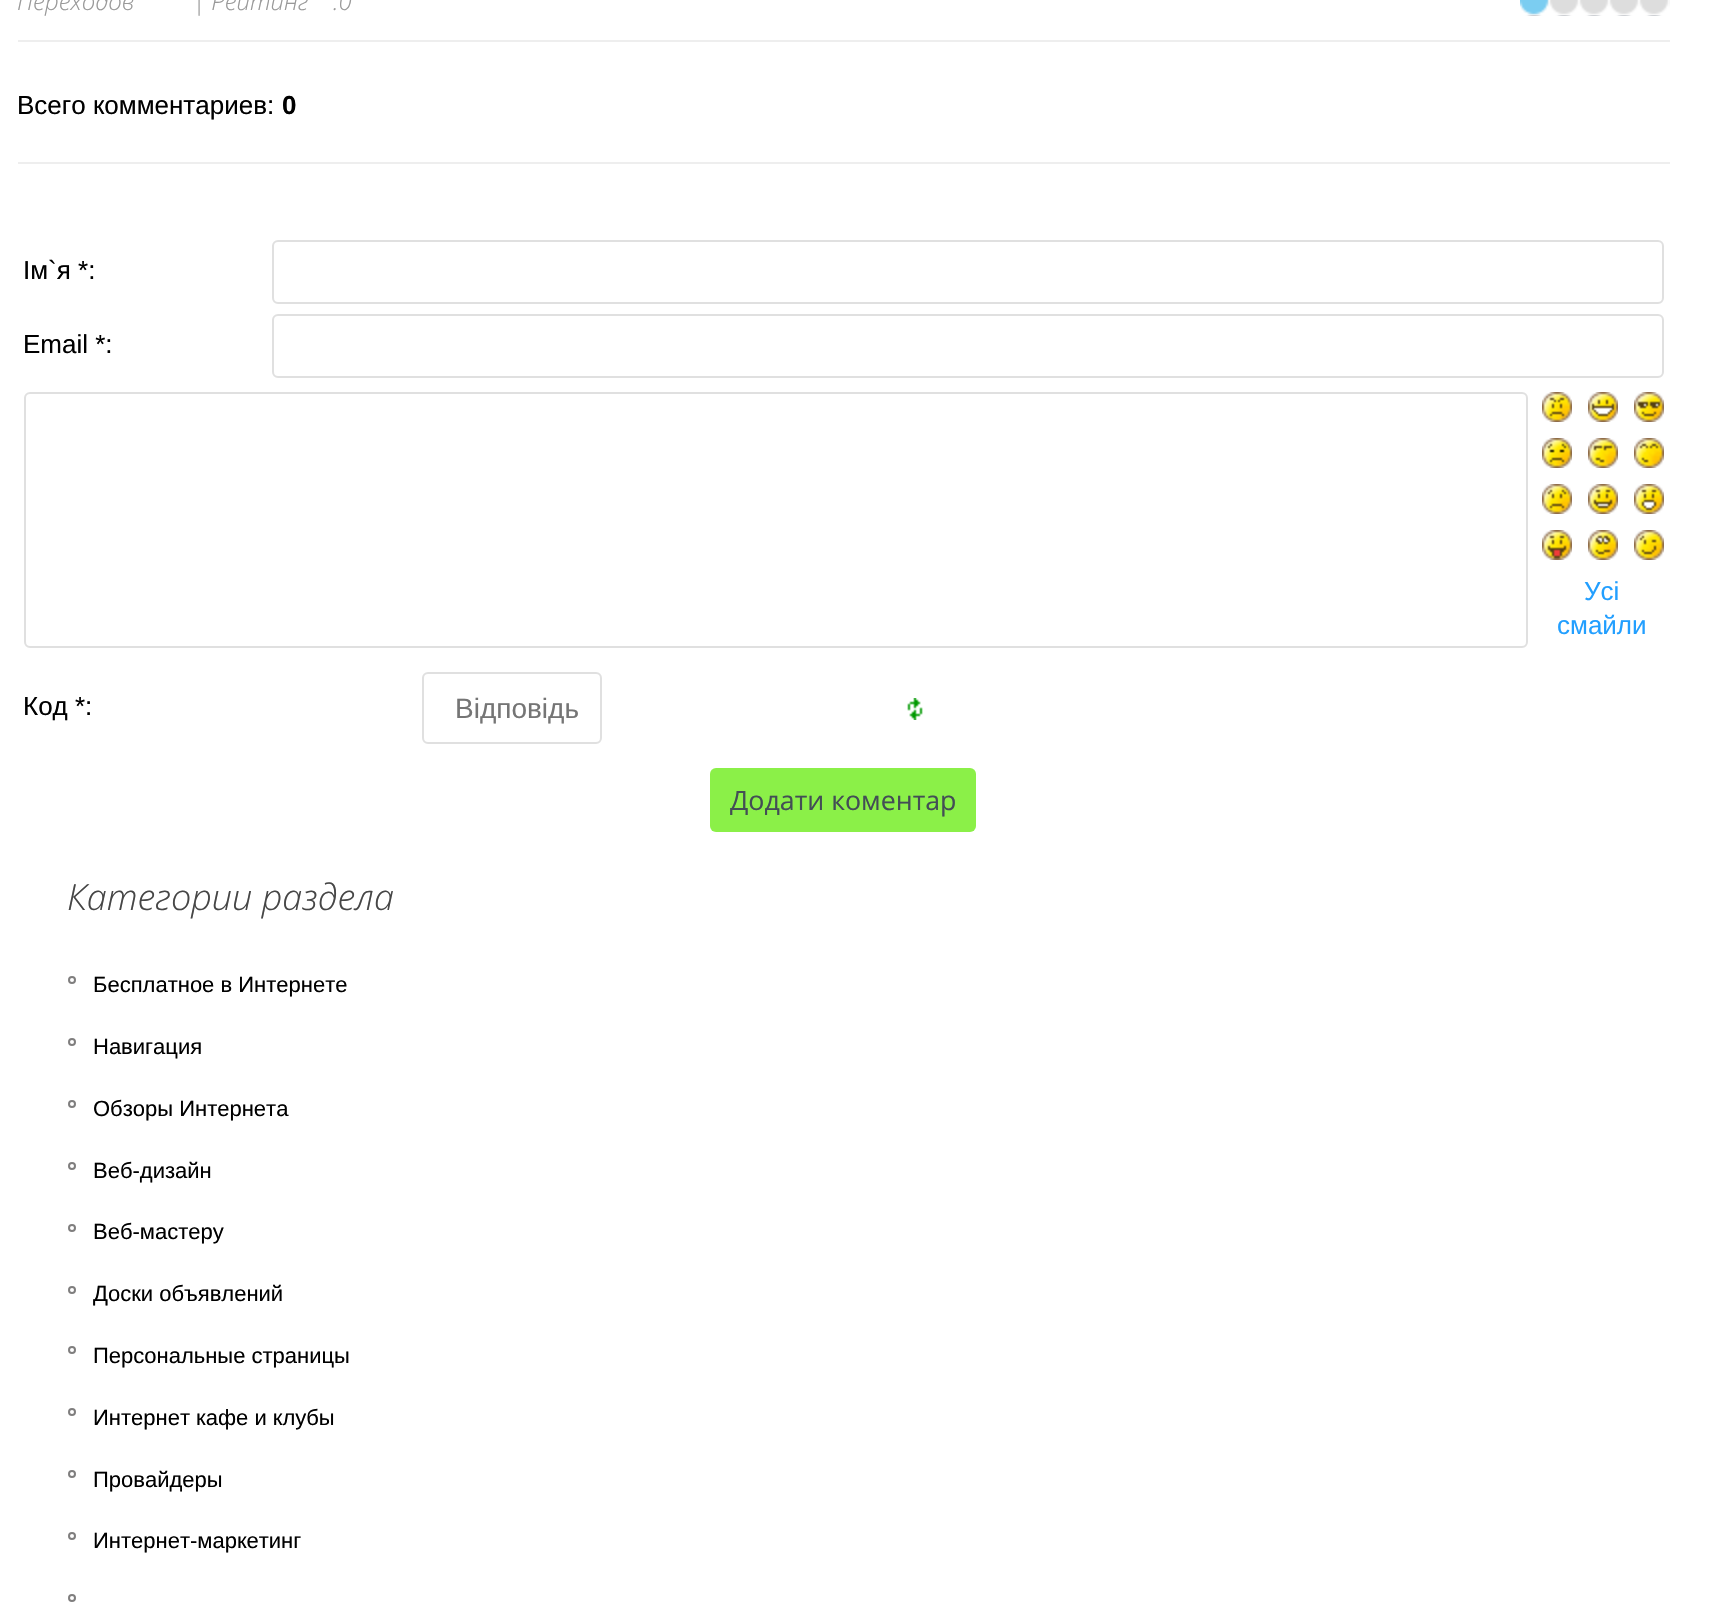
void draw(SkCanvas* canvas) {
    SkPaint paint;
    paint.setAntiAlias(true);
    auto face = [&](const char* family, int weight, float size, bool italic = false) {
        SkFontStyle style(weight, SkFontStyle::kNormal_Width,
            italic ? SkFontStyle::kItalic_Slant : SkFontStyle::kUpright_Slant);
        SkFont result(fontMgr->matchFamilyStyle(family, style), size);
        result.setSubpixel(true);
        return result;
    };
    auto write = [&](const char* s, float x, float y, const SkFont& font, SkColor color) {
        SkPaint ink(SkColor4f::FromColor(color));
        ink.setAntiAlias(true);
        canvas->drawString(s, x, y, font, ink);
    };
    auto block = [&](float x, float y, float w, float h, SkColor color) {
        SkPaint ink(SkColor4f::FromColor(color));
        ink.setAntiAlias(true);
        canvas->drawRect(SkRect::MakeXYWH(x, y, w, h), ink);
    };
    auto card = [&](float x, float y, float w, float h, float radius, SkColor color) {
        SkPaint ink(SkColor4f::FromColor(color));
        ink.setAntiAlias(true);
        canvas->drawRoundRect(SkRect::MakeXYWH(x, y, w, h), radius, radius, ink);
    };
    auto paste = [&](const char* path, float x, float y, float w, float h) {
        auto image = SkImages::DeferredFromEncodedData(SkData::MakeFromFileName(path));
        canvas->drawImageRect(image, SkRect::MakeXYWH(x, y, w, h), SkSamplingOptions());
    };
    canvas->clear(SK_ColorWHITE);
    block(18, 40, 1652, 2, SkColorSetRGB(238, 238, 238));
    auto kFont1 = face("Open Sans", 300, 24, true);
    write("Переходов", 17, 10, kFont1, SkColorSetRGB(153, 153, 153));
    write("| Рейтинг", 192, 10, kFont1, SkColorSetRGB(153, 153, 153));
    write(".0", 333, 10, kFont1, SkColorSetRGB(153, 153, 153));
    paste("pic1.png", 1520, 0, 150, 16);
    paste("pic2.png", 1520, 0, 29, 15);
    auto kFont2 = face("Liberation Sans", 400, 26);
    write("Всего комментариев:", 17, 114, kFont2, SK_ColorBLACK);
    auto kFont3 = face("Liberation Sans", 700, 26);
    write("0", 282, 114, kFont3, SK_ColorBLACK);
    block(18, 162, 1652, 2, SkColorSetRGB(238, 238, 238));
    write("Ім`я *:", 23, 279, kFont2, SK_ColorBLACK);
    paint.setStyle(SkPaint::kStroke_Style);
    paint.setStrokeWidth(2);
    paint.setColor(SkColorSetRGB(224, 224, 224));
    canvas->drawRoundRect(SkRect::MakeXYWH(273, 241, 1390, 62), 5, 5, paint);
    write("Email *:", 23, 353, kFont2, SK_ColorBLACK);
    canvas->drawRoundRect(SkRect::MakeXYWH(273, 315, 1390, 62), 5, 5, paint);
    canvas->drawRoundRect(SkRect::MakeXYWH(25, 393, 1502, 254), 5, 5, paint);
    paste("pic3.png", 1542, 392, 30, 30);
    paste("pic4.png", 1588, 392, 30, 30);
    paste("pic5.png", 1634, 392, 30, 30);
    paste("pic6.png", 1542, 438, 30, 30);
    paste("pic7.png", 1588, 438, 30, 30);
    paste("pic8.png", 1634, 438, 30, 30);
    paste("pic9.png", 1542, 484, 30, 30);
    paste("pic10.png", 1588, 484, 30, 30);
    paste("pic11.png", 1634, 484, 30, 30);
    paste("pic12.png", 1542, 530, 30, 30);
    paste("pic13.png", 1588, 530, 30, 30);
    paste("pic14.png", 1634, 530, 30, 30);
    write("Усі", 1584, 600, kFont2, SkColorSetRGB(34, 159, 255));
    write("смайли", 1557, 634, kFont2, SkColorSetRGB(34, 159, 255));
    write("Код *:", 23, 715, kFont2, SK_ColorBLACK);
    canvas->drawRoundRect(SkRect::MakeXYWH(423, 673, 178, 70), 5, 5, paint);
    auto kFont4 = face("Liberation Sans", 400, 28);
    write("Відповідь", 455, 718, kFont4, SkColorSetRGB(117, 117, 117));
    paste("pic15.png", 907, 698, 16, 22);
    card(710, 768, 266, 64, 6, SkColorSetRGB(139, 240, 72));
    auto kFont5 = face("Open Sans", 400, 26.75f);
    write("Додати коментар", 730, 810, kFont5, SkColorSetRGB(67, 78, 85));
    auto kFont6 = face("Open Sans", 300, 36, true);
    write("Категории раздела", 67, 910, kFont6, SkColorSetRGB(70, 70, 70));
    paint.setColor(SkColorSetRGB(127, 126, 126));
    canvas->drawCircle(72, 980, 3, paint);
    auto kFont7 = face("Liberation Sans", 400, 22);
    write("Бесплатное в Интернете", 93, 992, kFont7, SK_ColorBLACK);
    canvas->drawCircle(72, 1042, 3, paint);
    write("Навигация", 93, 1054, kFont7, SK_ColorBLACK);
    canvas->drawCircle(72, 1104, 3, paint);
    write("Обзоры Интернета", 93, 1116, kFont7, SK_ColorBLACK);
    canvas->drawCircle(72, 1166, 3, paint);
    write("Веб-дизайн", 93, 1178, kFont7, SK_ColorBLACK);
    canvas->drawCircle(72, 1228, 3, paint);
    write("Веб-мастеру", 93, 1239, kFont7, SK_ColorBLACK);
    canvas->drawCircle(72, 1290, 3, paint);
    write("Доски объявлений", 93, 1301, kFont7, SK_ColorBLACK);
    canvas->drawCircle(72, 1350, 3, paint);
    write("Персональные страницы", 93, 1363, kFont7, SK_ColorBLACK);
    canvas->drawCircle(72, 1412, 3, paint);
    write("Интернет кафе и клубы", 93, 1425, kFont7, SK_ColorBLACK);
    canvas->drawCircle(72, 1474, 3, paint);
    write("Провайдеры", 93, 1487, kFont7, SK_ColorBLACK);
    canvas->drawCircle(72, 1536, 3, paint);
    write("Интернет-маркетинг", 93, 1548, kFont7, SK_ColorBLACK);
    canvas->drawCircle(72, 1598, 3, paint);
}
